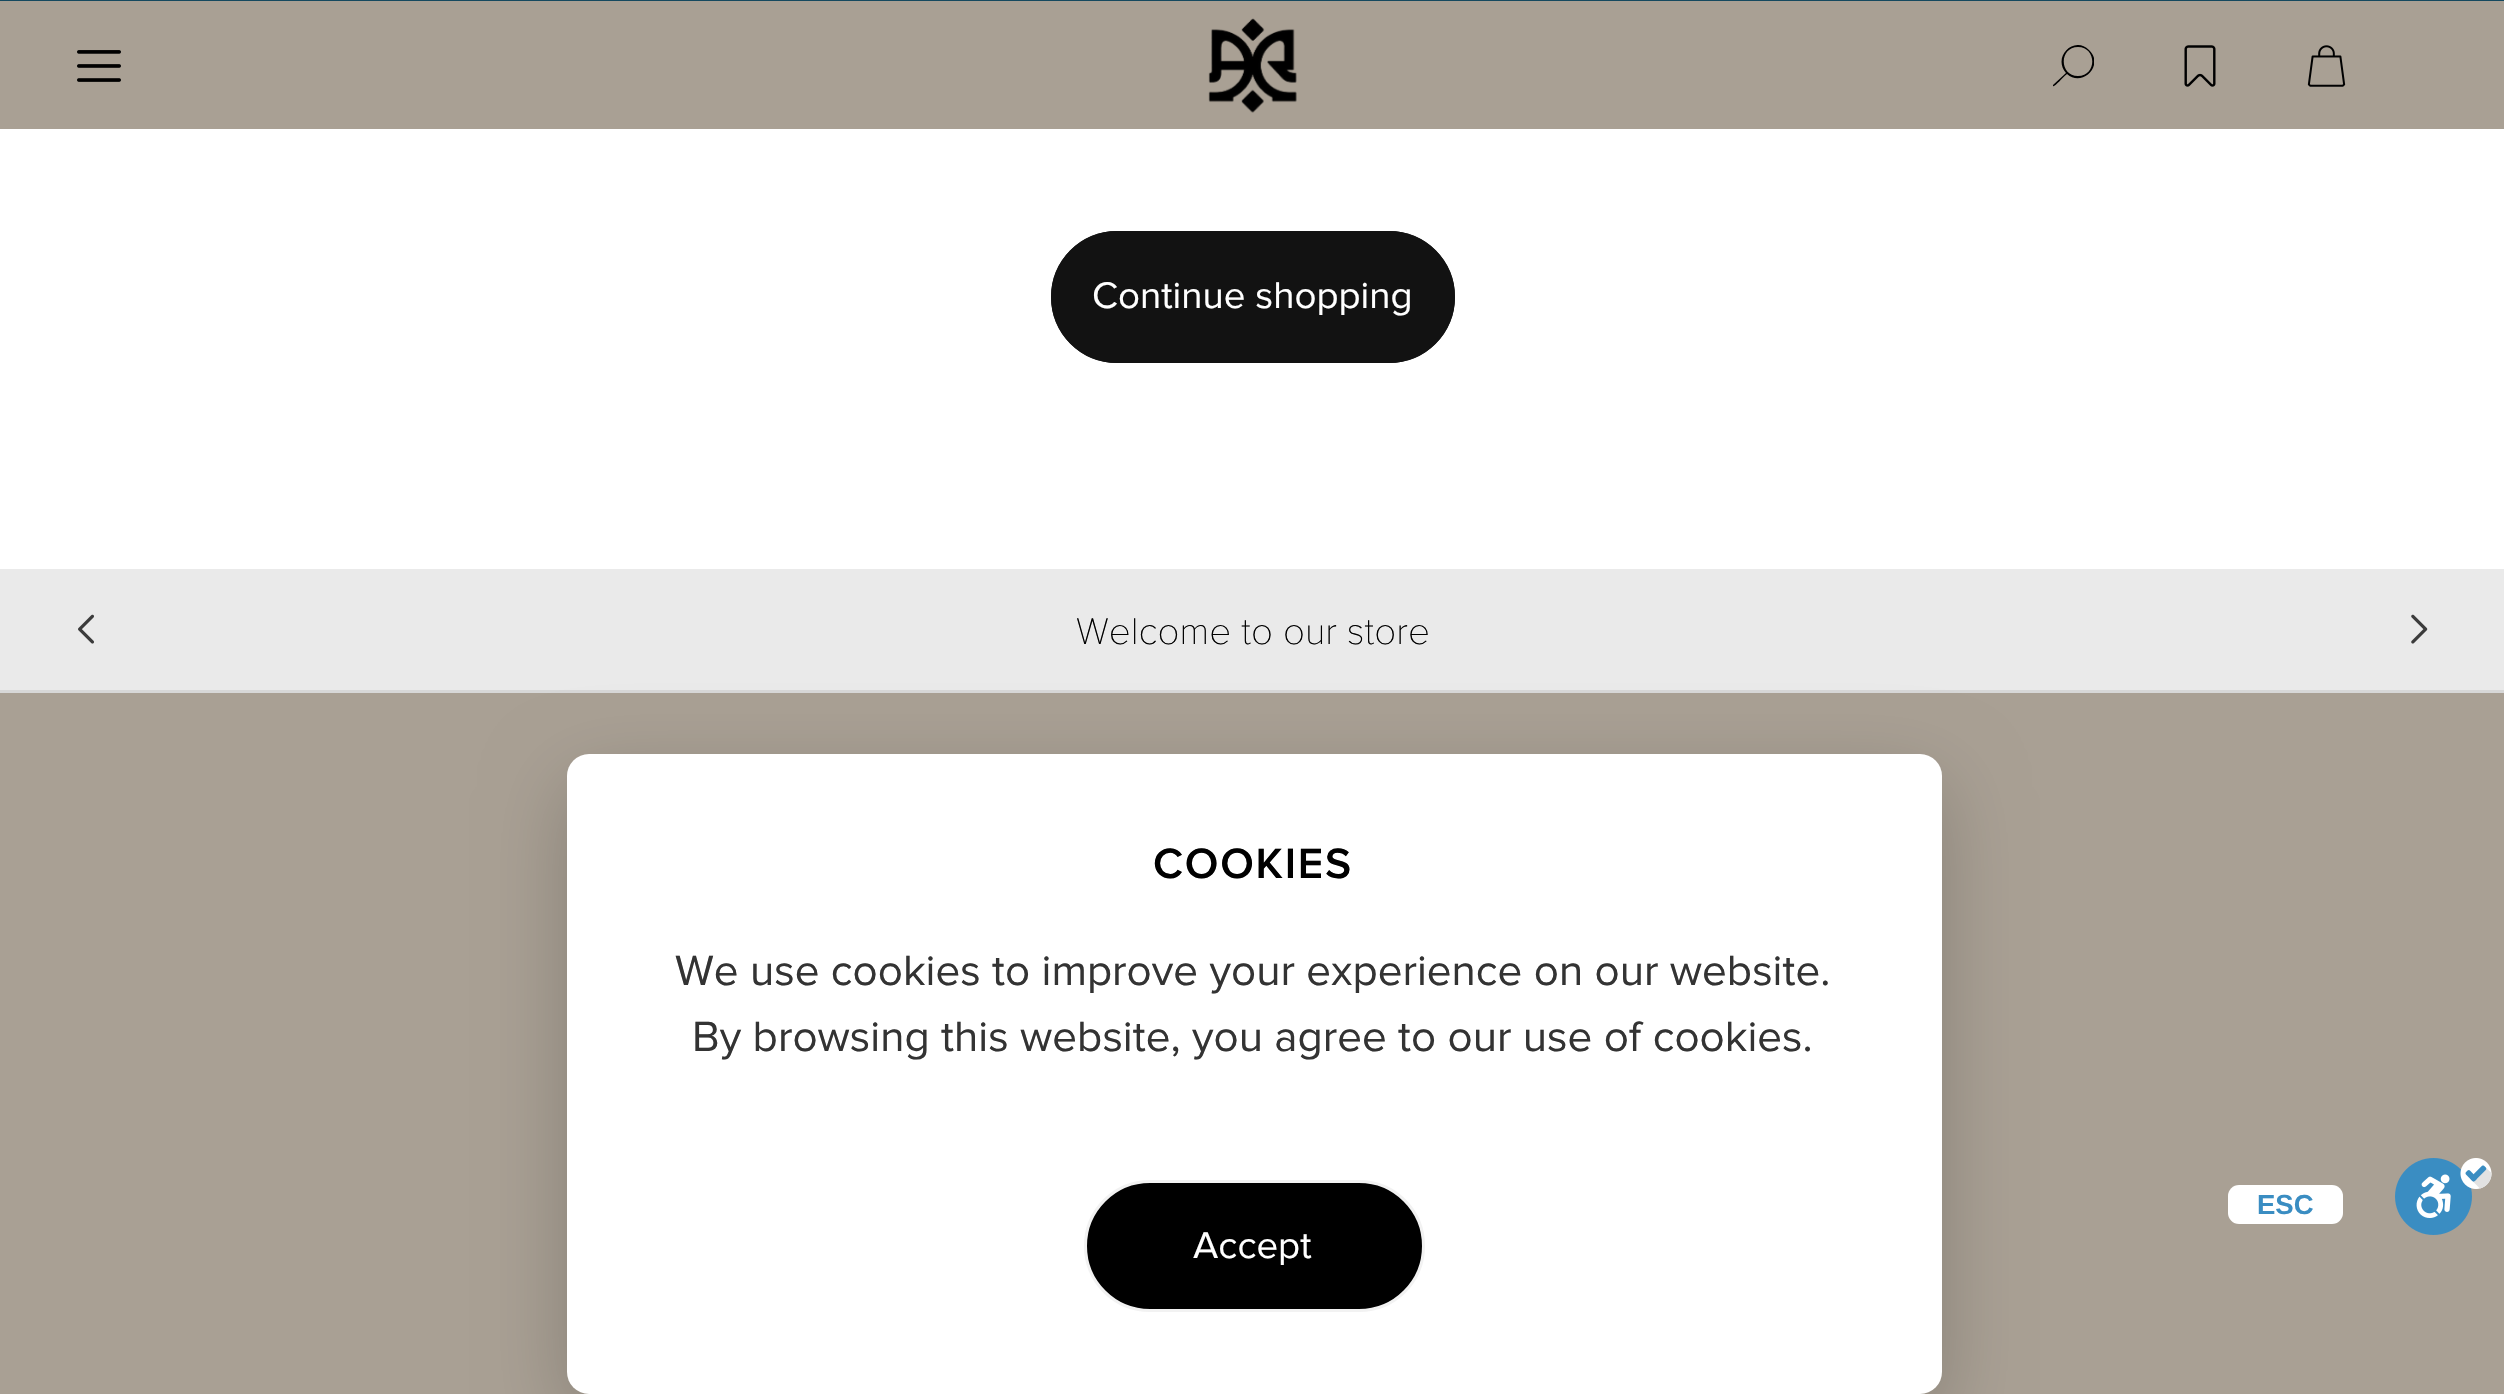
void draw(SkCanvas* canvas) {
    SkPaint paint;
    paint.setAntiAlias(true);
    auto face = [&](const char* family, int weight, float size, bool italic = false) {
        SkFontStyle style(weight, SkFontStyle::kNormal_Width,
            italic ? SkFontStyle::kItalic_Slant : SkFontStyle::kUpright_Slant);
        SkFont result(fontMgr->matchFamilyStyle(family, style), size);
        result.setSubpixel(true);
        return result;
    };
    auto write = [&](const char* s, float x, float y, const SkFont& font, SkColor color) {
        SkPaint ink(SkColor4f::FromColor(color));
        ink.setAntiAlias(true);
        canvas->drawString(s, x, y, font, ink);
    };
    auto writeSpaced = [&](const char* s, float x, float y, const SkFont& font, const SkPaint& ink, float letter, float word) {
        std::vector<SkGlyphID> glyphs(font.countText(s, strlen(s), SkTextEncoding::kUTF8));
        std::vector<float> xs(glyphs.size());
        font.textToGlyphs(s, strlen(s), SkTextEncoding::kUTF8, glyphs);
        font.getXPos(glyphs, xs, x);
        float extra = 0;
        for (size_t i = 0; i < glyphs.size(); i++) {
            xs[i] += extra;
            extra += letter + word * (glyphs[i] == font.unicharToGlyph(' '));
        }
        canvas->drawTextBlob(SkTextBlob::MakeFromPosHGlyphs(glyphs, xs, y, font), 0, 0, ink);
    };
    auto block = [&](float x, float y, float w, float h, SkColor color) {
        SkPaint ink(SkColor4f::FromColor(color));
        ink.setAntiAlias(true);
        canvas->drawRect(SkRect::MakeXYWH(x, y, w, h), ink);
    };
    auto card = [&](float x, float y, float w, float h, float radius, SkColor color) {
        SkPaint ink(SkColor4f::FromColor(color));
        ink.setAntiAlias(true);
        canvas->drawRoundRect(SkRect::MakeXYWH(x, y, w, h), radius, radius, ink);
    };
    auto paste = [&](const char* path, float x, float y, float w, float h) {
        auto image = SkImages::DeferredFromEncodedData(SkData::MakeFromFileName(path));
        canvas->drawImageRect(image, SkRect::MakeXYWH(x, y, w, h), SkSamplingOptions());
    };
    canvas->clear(SK_ColorWHITE);
    block(0, 1, 2504, 128, SkColorSetRGB(169, 160, 148));
    paste("pic1.png", 77, 50, 44, 32);
    paste("pic2.png", 1208, 18, 89, 95);
    canvas->save();
    canvas->clipRect(SkRect::MakeXYWH(2053, 45, 41, 42));
    paint.setColor(SK_ColorBLACK);
    canvas->drawPath(SkPathBuilder().moveTo(2053, 85).lineTo(2066, 73).cubicTo(2052, 57, 2074, 35, 2089, 50).cubicTo(2105, 65, 2082, 88, 2067, 74).cubicTo(2063, 77, 2054, 88, 2053, 86).close().moveTo(2078, 76).cubicTo(2097, 76, 2097, 47, 2078, 47).cubicTo(2059, 47, 2059, 76, 2078, 76).close().detach(), paint);
    canvas->restore();
    paste("pic3.png", 2184, 45, 32, 42);
    paste("pic4.png", 2307, 45, 39, 42);
    card(1051, 231, 404, 132, 66, SkColorSetRGB(18, 18, 18));
    paint.setStyle(SkPaint::kStroke_Style);
    paint.setStrokeWidth(3);
    paint.setColor(SkColorSetRGB(18, 18, 18));
    canvas->drawRoundRect(SkRect::MakeXYWH(1052.5f, 232.5f, 401, 129), 64.5f, 64.5f, paint);
    auto kFont1 = face("Proxima Nova", 400, 38.5f);
    write("Continue shopping", 1092, 308, kFont1, SK_ColorWHITE);
    block(0, 569, 2504, 121, SkColorSetRGB(234, 234, 234));
    block(0, 690, 2504, 3, SkColorSetRGB(215, 215, 215));
    paste("pic5.png", 78, 614, 16, 30);
    auto kFont2 = face("Proxima Nova", 100, 38.5f);
    write("Welcome to our store", 1076, 644, kFont2, SK_ColorBLACK);
    paste("pic6.png", 2411, 614, 17, 30);
    block(0, 693, 2504, 701, SkColorSetRGB(169, 160, 148));
    paint.setStyle(SkPaint::kFill_Style);
    paint.setColor(SkColorSetARGB(51, 0, 0, 0));
    paint.setMaskFilter(SkMaskFilter::MakeBlur(kNormal_SkBlurStyle, 41));
    canvas->drawRoundRect(SkRect::MakeXYWH(567, 781, 1375, 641), 22, 22, paint);
    paint.setMaskFilter(nullptr);
    card(567, 754, 1375, 640, 22, SK_ColorWHITE);
    auto kFont3 = face("Proxima Nova", 600, 44);
    paint.setColor(SK_ColorBLACK);
    writeSpaced("COOKIES", 1153, 878, kFont3, paint, 1.75f, 0);
    auto kFont4 = face("Proxima Nova", 400, 44);
    write("We use cookies to improve your experience on our website.", 675, 985, kFont4, SkColorSetRGB(51, 51, 51));
    write("By browsing this website, you agree to our use of cookies.", 692, 1051, kFont4, SkColorSetRGB(51, 51, 51));
    canvas->drawRoundRect(SkRect::MakeXYWH(1085.5f, 1181.5f, 338, 129), 64.5f, 64.5f, paint);
    paint.setStyle(SkPaint::kStroke_Style);
    paint.setColor(SkColorSetRGB(242, 242, 242));
    canvas->drawRoundRect(SkRect::MakeXYWH(1085.5f, 1181.5f, 338, 129), 64.5f, 64.5f, paint);
    write("Accept", 1193, 1258, kFont1, SK_ColorWHITE);
    block(0, 0, 2504, 1, SkColorSetRGB(21, 73, 95));
    card(2228, 1185, 115, 39, 11, SK_ColorWHITE);
    auto kFont5 = face("Liberation Sans", 700, 27.5f);
    write("ESC", 2257, 1214, kFont5, SkColorSetRGB(58, 141, 194));
    paste("pic7.png", 2395, 1158, 97, 77);
}
